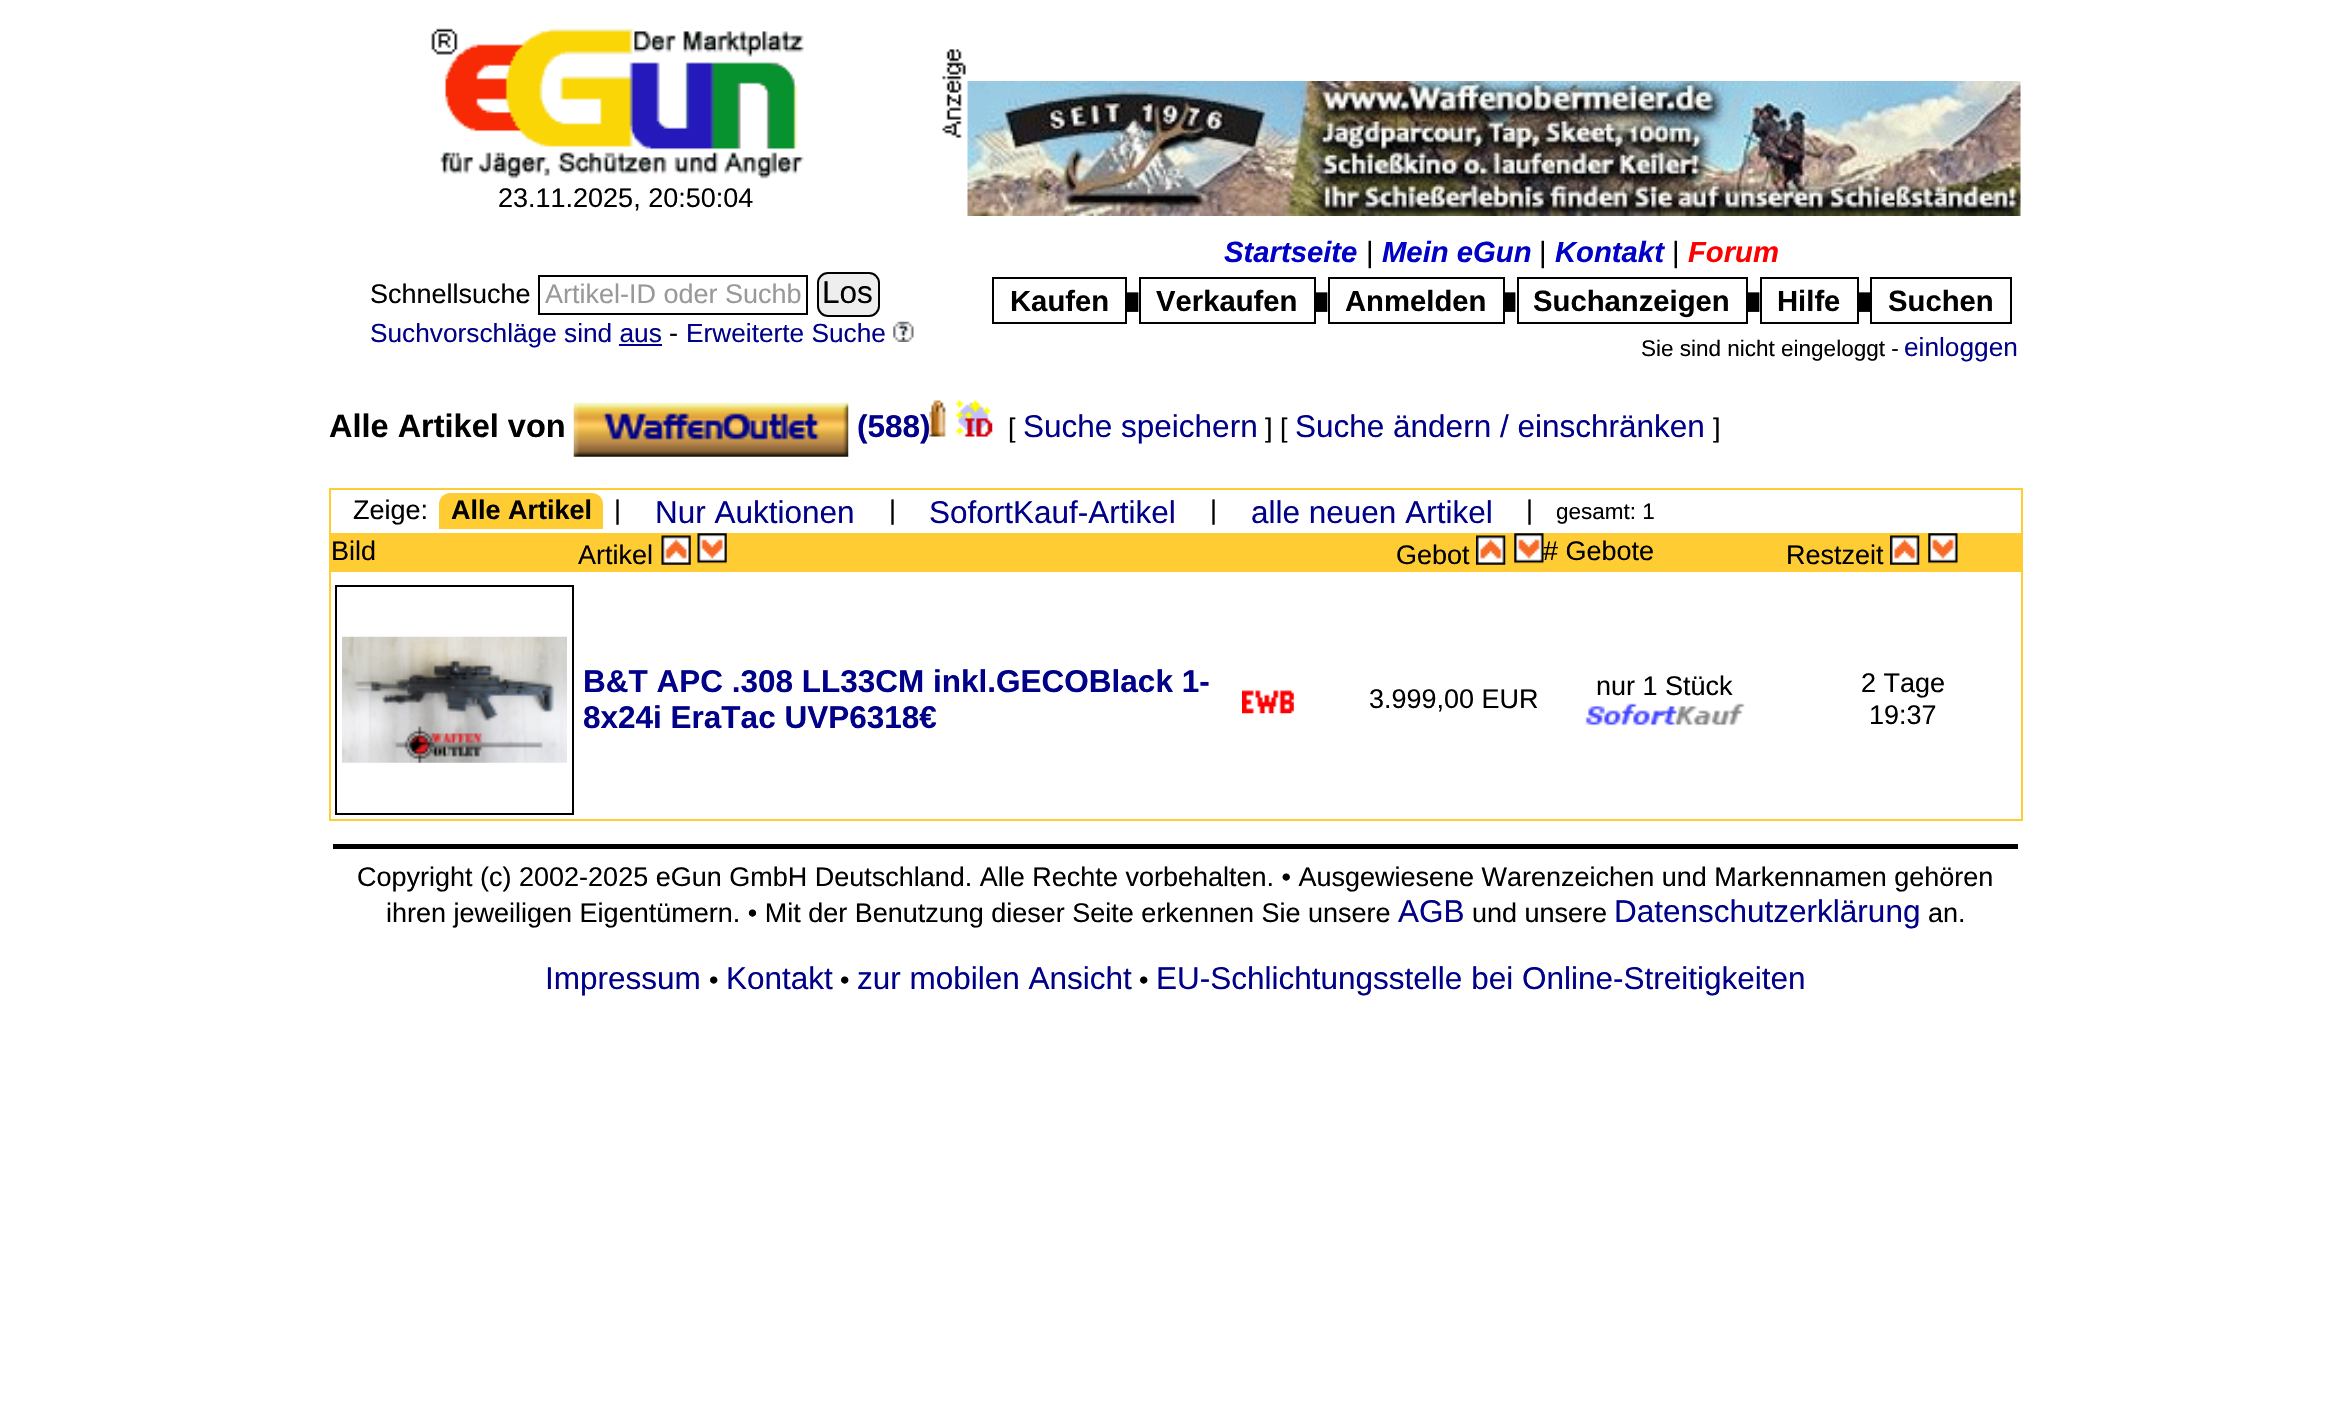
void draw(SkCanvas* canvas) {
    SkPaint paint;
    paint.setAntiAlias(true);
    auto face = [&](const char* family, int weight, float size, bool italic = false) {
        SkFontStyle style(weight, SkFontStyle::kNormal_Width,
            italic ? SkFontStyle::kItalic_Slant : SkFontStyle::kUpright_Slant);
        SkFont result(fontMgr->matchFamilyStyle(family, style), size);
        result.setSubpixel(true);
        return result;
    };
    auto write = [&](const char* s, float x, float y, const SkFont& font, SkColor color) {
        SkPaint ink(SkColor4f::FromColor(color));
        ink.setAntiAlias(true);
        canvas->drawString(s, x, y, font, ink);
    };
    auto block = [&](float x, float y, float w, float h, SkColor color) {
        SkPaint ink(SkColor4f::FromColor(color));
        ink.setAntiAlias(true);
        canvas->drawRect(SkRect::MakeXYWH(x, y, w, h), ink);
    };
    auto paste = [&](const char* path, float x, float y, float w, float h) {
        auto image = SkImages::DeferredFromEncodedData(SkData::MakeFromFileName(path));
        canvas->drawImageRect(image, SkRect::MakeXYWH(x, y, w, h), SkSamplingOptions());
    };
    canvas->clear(SK_ColorWHITE);
    paste("pic1.png", 431, 28, 373, 151);
    auto kFont1 = face("Liberation Sans", 400, 27);
    write("23.11.2025, 20:50:04", 498, 207, kFont1, SK_ColorBLACK);
    paste("pic2.png", 942, 49, 24, 89);
    paste("pic3.png", 967, 81, 1054, 135);
    write("Schnellsuche", 370, 303, kFont1, SK_ColorBLACK);
    paint.setStyle(SkPaint::kStroke_Style);
    paint.setStrokeWidth(2);
    paint.setColor(SK_ColorBLACK);
    canvas->drawRect(SkRect::MakeXYWH(539, 276, 268, 38), paint);
    write("Artikel-ID oder Suchb", 545, 303, kFont1, SkColorSetRGB(153, 153, 153));
    paint.setStyle(SkPaint::kFill_Style);
    paint.setColor(SkColorSetRGB(238, 238, 238));
    canvas->drawRoundRect(SkRect::MakeXYWH(818, 273, 61, 43), 10, 10, paint);
    paint.setStyle(SkPaint::kStroke_Style);
    paint.setColor(SK_ColorBLACK);
    canvas->drawRoundRect(SkRect::MakeXYWH(818, 273, 61, 43), 10, 10, paint);
    auto kFont2 = face("Liberation Sans", 400, 31.5f);
    write("Los", 822, 303, kFont2, SK_ColorBLACK);
    auto kFont3 = face("Liberation Sans", 400, 26.25f);
    write("Suchvorschläge sind aus", 370, 342, kFont3, SkColorSetRGB(0, 0, 136));
    block(619, 344, 43, 2, SkColorSetRGB(0, 0, 136));
    write("-", 669, 342, kFont1, SK_ColorBLACK);
    write("Erweiterte Suche", 686, 342, kFont3, SkColorSetRGB(0, 0, 136));
    paste("pic4.png", 893, 321, 21, 21);
    auto kFont4 = face("Liberation Sans", 700, 29.25f, true);
    write("Startseite", 1224, 262, kFont4, SkColorSetRGB(0, 0, 198));
    auto kFont5 = face("Liberation Sans", 400, 29.25f);
    write("|", 1366, 262, kFont5, SK_ColorBLACK);
    write("Mein eGun", 1382, 262, kFont4, SkColorSetRGB(0, 0, 198));
    write("|", 1539, 262, kFont5, SK_ColorBLACK);
    write("Kontakt", 1555, 262, kFont4, SkColorSetRGB(0, 0, 198));
    write("|", 1672, 262, kFont5, SK_ColorBLACK);
    write("Forum", 1688, 262, kFont4, SkColorSetRGB(255, 0, 0));
    canvas->drawRect(SkRect::MakeXYWH(993, 278, 133, 45), paint);
    auto kFont6 = face("Liberation Sans", 700, 29.25f);
    write("Kaufen", 1010, 311, kFont6, SK_ColorBLACK);
    auto kFont7 = face("Liberation Sans", 400, 16);
    write("█", 1127, 307, kFont7, SK_ColorBLACK);
    canvas->drawRect(SkRect::MakeXYWH(1140, 278, 175, 45), paint);
    write("Verkaufen", 1156, 311, kFont6, SK_ColorBLACK);
    write("█", 1316, 307, kFont7, SK_ColorBLACK);
    canvas->drawRect(SkRect::MakeXYWH(1329, 278, 175, 45), paint);
    write("Anmelden", 1345, 311, kFont6, SK_ColorBLACK);
    write("█", 1504, 307, kFont7, SK_ColorBLACK);
    canvas->drawRect(SkRect::MakeXYWH(1518, 278, 229, 45), paint);
    write("Suchanzeigen", 1533, 311, kFont6, SK_ColorBLACK);
    write("█", 1748, 307, kFont7, SK_ColorBLACK);
    canvas->drawRect(SkRect::MakeXYWH(1761, 278, 97, 45), paint);
    write("Hilfe", 1777, 311, kFont6, SK_ColorBLACK);
    write("█", 1859, 307, kFont7, SK_ColorBLACK);
    canvas->drawRect(SkRect::MakeXYWH(1871, 278, 140, 45), paint);
    write("Suchen", 1888, 311, kFont6, SK_ColorBLACK);
    auto kFont8 = face("Liberation Sans", 400, 22.5f);
    write("Sie sind nicht eingeloggt -", 1641, 356, kFont8, SK_ColorBLACK);
    write("einloggen", 1904, 356, kFont3, SkColorSetRGB(0, 0, 136));
    auto kFont9 = face("Liberation Sans", 700, 32.5f);
    write("Alle Artikel von", 329, 437, kFont9, SK_ColorBLACK);
    paste("pic5.png", 573, 402, 276, 55);
    auto kFont10 = face("Liberation Sans", 700, 31.5f);
    write("(588)", 857, 437, kFont10, SkColorSetRGB(0, 0, 136));
    paste("pic6.png", 929, 400, 17, 37);
    paste("pic7.png", 956, 400, 37, 37);
    write("[", 1008, 437, kFont1, SK_ColorBLACK);
    write("Suche speichern", 1023, 437, kFont2, SkColorSetRGB(0, 0, 136));
    write("] [", 1265, 437, kFont1, SK_ColorBLACK);
    write("Suche ändern / einschränken", 1295, 437, kFont2, SkColorSetRGB(0, 0, 136));
    write("]", 1713, 437, kFont1, SK_ColorBLACK);
    paint.setColor(SkColorSetRGB(255, 204, 51));
    canvas->drawRect(SkRect::MakeXYWH(330, 489, 1692, 331), paint);
    write("Zeige:", 353, 519, kFont1, SK_ColorBLACK);
    paint.setStyle(SkPaint::kFill_Style);
    canvas->drawPath(SkPathBuilder().moveTo(450, 493).lineTo(592, 493).cubicTo(598, 493, 603, 498, 603, 504).lineTo(603, 529).lineTo(439, 529).lineTo(439, 504).cubicTo(439, 498, 444, 493, 450, 493).close().detach(), paint);
    auto kFont11 = face("Liberation Sans", 700, 27);
    write("Alle Artikel", 451, 519, kFont11, SK_ColorBLACK);
    write("|", 614, 519, kFont1, SK_ColorBLACK);
    write("Nur Auktionen", 655, 523, kFont2, SkColorSetRGB(0, 0, 136));
    write("|", 889, 519, kFont1, SK_ColorBLACK);
    write("SofortKauf-Artikel", 929, 523, kFont2, SkColorSetRGB(0, 0, 136));
    write("|", 1210, 519, kFont1, SK_ColorBLACK);
    write("alle neuen Artikel", 1251, 523, kFont2, SkColorSetRGB(0, 0, 136));
    write("|", 1526, 519, kFont1, SK_ColorBLACK);
    write("gesamt: 1", 1556, 519, kFont8, SK_ColorBLACK);
    block(331, 533, 1690, 39, SkColorSetRGB(255, 204, 51));
    write("Bild", 331, 560, kFont1, SK_ColorBLACK);
    write("Artikel", 578, 564, kFont1, SK_ColorBLACK);
    paste("pic8.png", 661, 535, 30, 30);
    paste("pic9.png", 697, 533, 30, 31);
    write("Gebot", 1396, 564, kFont1, SK_ColorBLACK);
    paste("pic10.png", 1476, 535, 30, 30);
    write("# Gebote", 1543, 560, kFont1, SK_ColorBLACK);
    paste("pic11.png", 1514, 533, 30, 31);
    write("Restzeit", 1786, 564, kFont1, SK_ColorBLACK);
    paste("pic10.png", 1890, 535, 30, 30);
    paste("pic12.png", 1928, 533, 30, 31);
    paint.setStyle(SkPaint::kStroke_Style);
    paint.setColor(SK_ColorBLACK);
    canvas->drawRect(SkRect::MakeXYWH(336, 586, 237, 228), paint);
    paste("pic13.png", 342, 636, 225, 127);
    write("B&T APC .308 LL33CM inkl.GECOBlack 1-", 583, 692, kFont10, SkColorSetRGB(0, 0, 136));
    write("8x24i EraTac UVP6318€", 583, 728, kFont10, SkColorSetRGB(0, 0, 136));
    write("nur 1 Stück", 1596, 695, kFont1, SK_ColorBLACK);
    paste("pic14.png", 1585, 703, 160, 23);
    write("2 Tage", 1861, 692, kFont1, SK_ColorBLACK);
    write("19:37", 1869, 724, kFont1, SK_ColorBLACK);
    paste("pic15.png", 1242, 690, 52, 24);
    write("3.999,00 EUR", 1369, 708, kFont1, SK_ColorBLACK);
    block(333, 844, 1685, 5, SK_ColorBLACK);
    write("Copyright (c) 2002-2025 eGun GmbH Deutschland. Alle Rechte vorbehalten. • Ausgewiesene Warenzeichen und Markennamen gehören", 357, 886, kFont1, SK_ColorBLACK);
    write("ihren jeweiligen Eigentümern. • Mit der Benutzung dieser Seite erkennen Sie unsere", 386, 922, kFont1, SK_ColorBLACK);
    write("AGB", 1398, 922, kFont2, SkColorSetRGB(0, 0, 136));
    write("und unsere", 1472, 922, kFont1, SK_ColorBLACK);
    write("Datenschutzerklärung", 1614, 922, kFont2, SkColorSetRGB(0, 0, 136));
    write("an.", 1928, 922, kFont1, SK_ColorBLACK);
    write("Impressum", 545, 989, kFont2, SkColorSetRGB(0, 0, 136));
    write("•", 709, 989, kFont1, SK_ColorBLACK);
    write("Kontakt", 726, 989, kFont2, SkColorSetRGB(0, 0, 136));
    write("•", 840, 989, kFont1, SK_ColorBLACK);
    write("zur mobilen Ansicht", 857, 989, kFont2, SkColorSetRGB(0, 0, 136));
    write("•", 1139, 989, kFont1, SK_ColorBLACK);
    write("EU-Schlichtungsstelle bei Online-Streitigkeiten", 1156, 989, kFont2, SkColorSetRGB(0, 0, 136));
}
